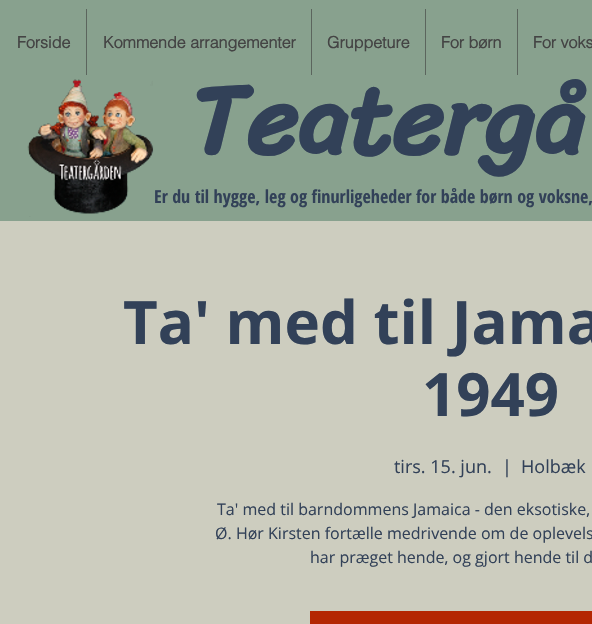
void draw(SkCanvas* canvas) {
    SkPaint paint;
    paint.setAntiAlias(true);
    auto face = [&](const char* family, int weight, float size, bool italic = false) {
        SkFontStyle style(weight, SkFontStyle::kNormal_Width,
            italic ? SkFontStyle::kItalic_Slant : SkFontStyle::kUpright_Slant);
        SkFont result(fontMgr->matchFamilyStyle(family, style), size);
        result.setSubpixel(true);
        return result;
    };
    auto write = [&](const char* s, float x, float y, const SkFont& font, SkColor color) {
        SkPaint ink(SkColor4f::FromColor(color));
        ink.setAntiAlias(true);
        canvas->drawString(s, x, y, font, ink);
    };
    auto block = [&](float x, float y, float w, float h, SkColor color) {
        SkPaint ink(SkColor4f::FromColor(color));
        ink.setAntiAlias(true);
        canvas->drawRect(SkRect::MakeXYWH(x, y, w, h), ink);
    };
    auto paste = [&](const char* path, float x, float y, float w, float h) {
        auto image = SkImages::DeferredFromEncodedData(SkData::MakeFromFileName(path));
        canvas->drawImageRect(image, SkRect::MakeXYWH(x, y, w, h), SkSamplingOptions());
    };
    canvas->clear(SkColorSetRGB(136, 161, 142));
    auto kFont1 = face("helvetica", 700, 16);
    write("Forside", 17, 48, kFont1, SkColorSetRGB(68, 68, 68));
    block(86, 9, 1, 66, SkColorSetRGB(91, 101, 93));
    write("Kommende arrangementer", 103, 48, kFont1, SkColorSetRGB(68, 68, 68));
    block(311, 9, 1, 66, SkColorSetRGB(91, 101, 93));
    write("Gruppeture", 327, 48, kFont1, SkColorSetRGB(68, 68, 68));
    block(425, 9, 1, 66, SkColorSetRGB(91, 101, 93));
    write("For børn", 441, 48, kFont1, SkColorSetRGB(68, 68, 68));
    block(517, 9, 1, 66, SkColorSetRGB(91, 101, 93));
    write("For voks", 533, 48, kFont1, SkColorSetRGB(68, 68, 68));
    auto kFont2 = face("Sriracha", 700, 100);
    write("Teatergå", 191, 154, kFont2, SkColorSetRGB(50, 65, 88));
    paste("pic1.png", 27, 79, 127, 138);
    auto kFont3 = face("Open Sans Condensed", 700, 18);
    write("Er du til hygge, leg og finurligeheder for både børn og voksne,", 154, 203, kFont3, SkColorSetRGB(50, 65, 88));
    block(0, 221, 592, 403, SkColorSetRGB(205, 205, 191));
    auto kFont4 = face("Open Sans", 700, 60);
    write("Ta' med til Jama", 123, 344, kFont4, SkColorSetRGB(50, 65, 88));
    write("1949", 422, 416, kFont4, SkColorSetRGB(50, 65, 88));
    auto kFont5 = face("Open Sans", 400, 18);
    write("tirs. 15. jun.", 394, 473, kFont5, SkColorSetRGB(50, 65, 88));
    write("|", 502, 473, kFont5, SkColorSetRGB(50, 65, 88));
    write("Holbæk", 521, 473, kFont5, SkColorSetRGB(50, 65, 88));
    auto kFont6 = face("Open Sans", 400, 16);
    write("Ta' med til barndommens Jamaica - den eksotiske,", 217, 515, kFont6, SkColorSetRGB(50, 65, 88));
    write("Ø. Hør Kirsten fortælle medrivende om de oplevels", 215, 539, kFont6, SkColorSetRGB(50, 65, 88));
    write("har præget hende, og gjort hende til d", 310, 563, kFont6, SkColorSetRGB(50, 65, 88));
    block(310, 611, 282, 13, SkColorSetRGB(180, 39, 3));
}
